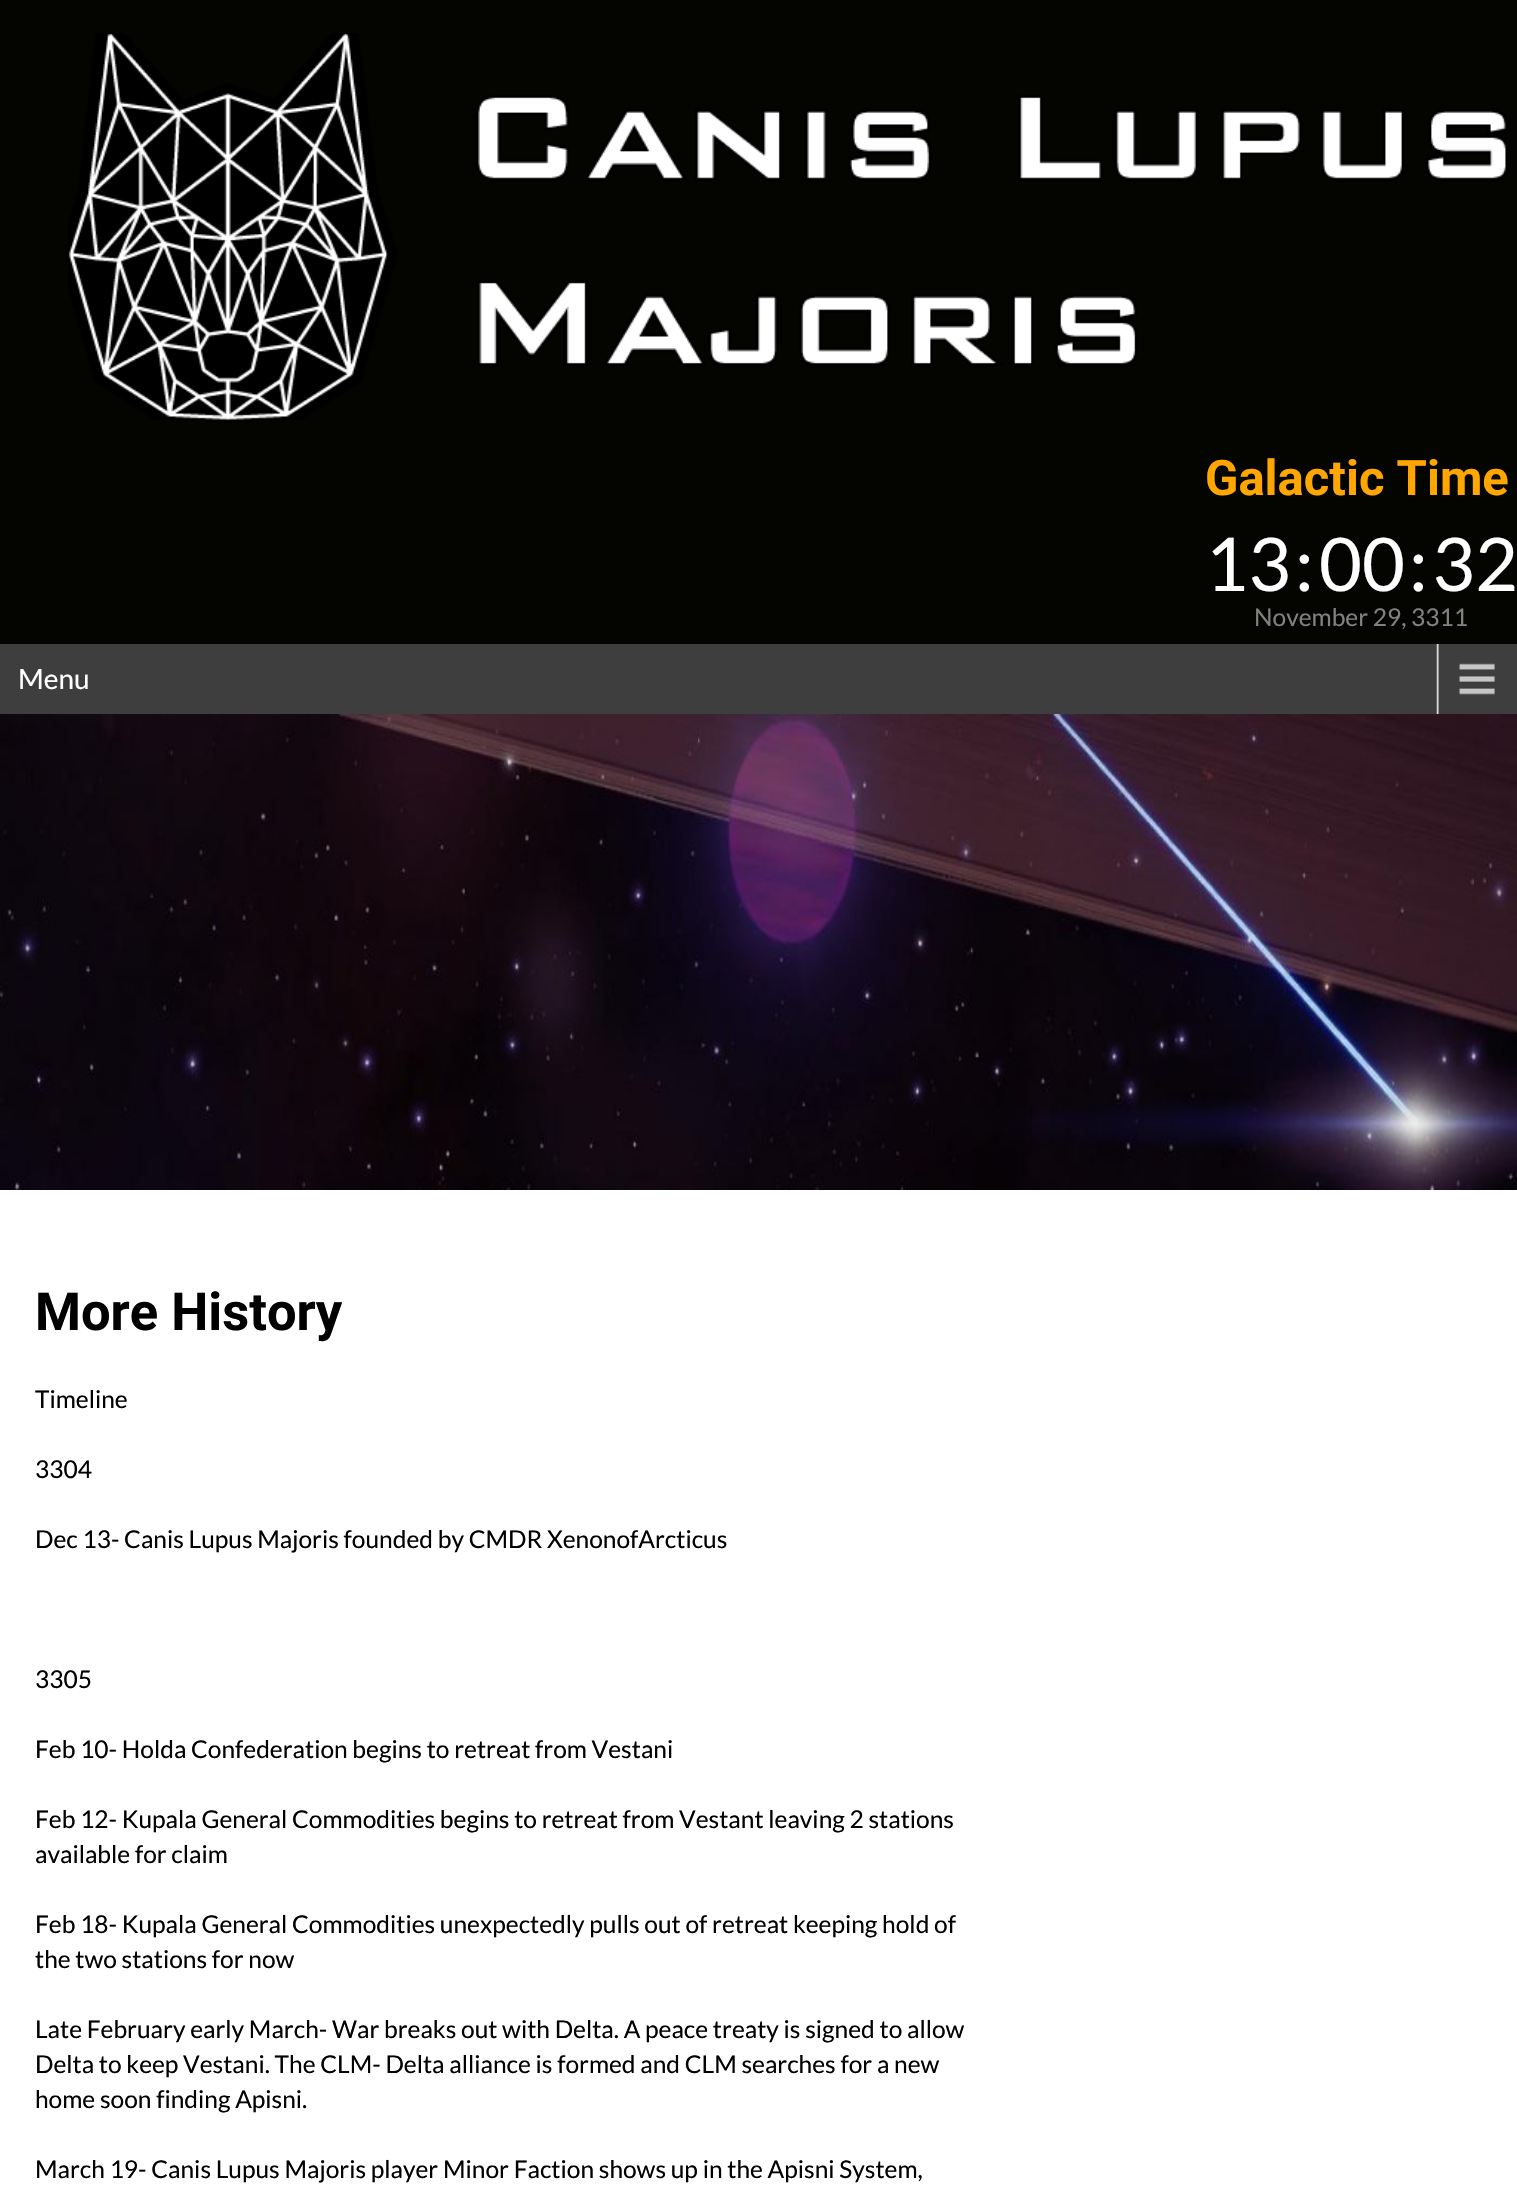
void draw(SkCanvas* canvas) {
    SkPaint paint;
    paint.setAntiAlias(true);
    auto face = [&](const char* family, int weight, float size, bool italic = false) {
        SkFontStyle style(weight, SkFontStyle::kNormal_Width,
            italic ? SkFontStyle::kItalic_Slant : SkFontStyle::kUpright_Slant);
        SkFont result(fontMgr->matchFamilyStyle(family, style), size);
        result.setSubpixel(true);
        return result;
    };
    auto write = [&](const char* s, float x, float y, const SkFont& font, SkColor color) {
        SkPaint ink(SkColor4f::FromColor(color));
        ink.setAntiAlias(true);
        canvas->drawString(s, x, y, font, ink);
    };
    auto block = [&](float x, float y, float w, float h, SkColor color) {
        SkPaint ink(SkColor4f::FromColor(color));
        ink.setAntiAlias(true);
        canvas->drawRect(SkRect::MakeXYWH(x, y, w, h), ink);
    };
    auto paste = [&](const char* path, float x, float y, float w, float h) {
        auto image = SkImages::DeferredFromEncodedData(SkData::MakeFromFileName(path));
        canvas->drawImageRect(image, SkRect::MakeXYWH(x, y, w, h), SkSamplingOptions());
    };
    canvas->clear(SK_ColorWHITE);
    block(0, 0, 1517, 644, SkColorSetRGB(4, 4, 0));
    paste("pic1.png", 68, 33, 1438, 387);
    auto kFont1 = face("Roboto", 700, 49);
    write("Galactic Time", 1205, 495, kFont1, SkColorSetRGB(255, 167, 0));
    auto kFont2 = face("Lato", 400, 74);
    write("13", 1205, 591, kFont2, SK_ColorWHITE);
    write(":", 1295, 591, kFont2, SK_ColorWHITE);
    write("00", 1319, 591, kFont2, SK_ColorWHITE);
    write(":", 1409, 591, kFont2, SK_ColorWHITE);
    write("32", 1432, 591, kFont2, SK_ColorWHITE);
    auto kFont3 = face("Lato", 400, 24.5f);
    write("November 29, 3311", 1254, 626, kFont3, SkColorSetRGB(130, 129, 129));
    block(0, 644, 1517, 70, SkColorSetRGB(62, 62, 62));
    paste("pic2.png", 1436, 644, 59, 70);
    auto kFont4 = face("Lato", 400, 28);
    write("Menu", 18, 689, kFont4, SK_ColorWHITE);
    paste("pic3.png", 0, 714, 1517, 476);
    auto kFont5 = face("Roboto", 700, 52.5f);
    write("More History", 35, 1330, kFont5, SK_ColorBLACK);
    write("Timeline", 35, 1408, kFont3, SK_ColorBLACK);
    write("3304", 35, 1478, kFont3, SK_ColorBLACK);
    write("Dec 13- Canis Lupus Majoris founded by CMDR XenonofArcticus", 35, 1548, kFont3, SK_ColorBLACK);
    write("3305", 35, 1688, kFont3, SK_ColorBLACK);
    write("Feb 10- Holda Confederation begins to retreat from Vestani", 35, 1758, kFont3, SK_ColorBLACK);
    write("Feb 12- Kupala General Commodities begins to retreat from Vestant leaving 2 stations", 35, 1828, kFont3, SK_ColorBLACK);
    write("available for claim", 35, 1863, kFont3, SK_ColorBLACK);
    write("Feb 18- Kupala General Commodities unexpectedly pulls out of retreat keeping hold of", 35, 1933, kFont3, SK_ColorBLACK);
    write("the two stations for now", 35, 1968, kFont3, SK_ColorBLACK);
    write("Late February early March- War breaks out with Delta. A peace treaty is signed to allow", 35, 2038, kFont3, SK_ColorBLACK);
    write("Delta to keep Vestani. The CLM- Delta alliance is formed and CLM searches for a new", 35, 2073, kFont3, SK_ColorBLACK);
    write("home soon finding Apisni.", 35, 2108, kFont3, SK_ColorBLACK);
    write("March 19- Canis Lupus Majoris player Minor Faction shows up in the Apisni System,", 35, 2178, kFont3, SK_ColorBLACK);
}
